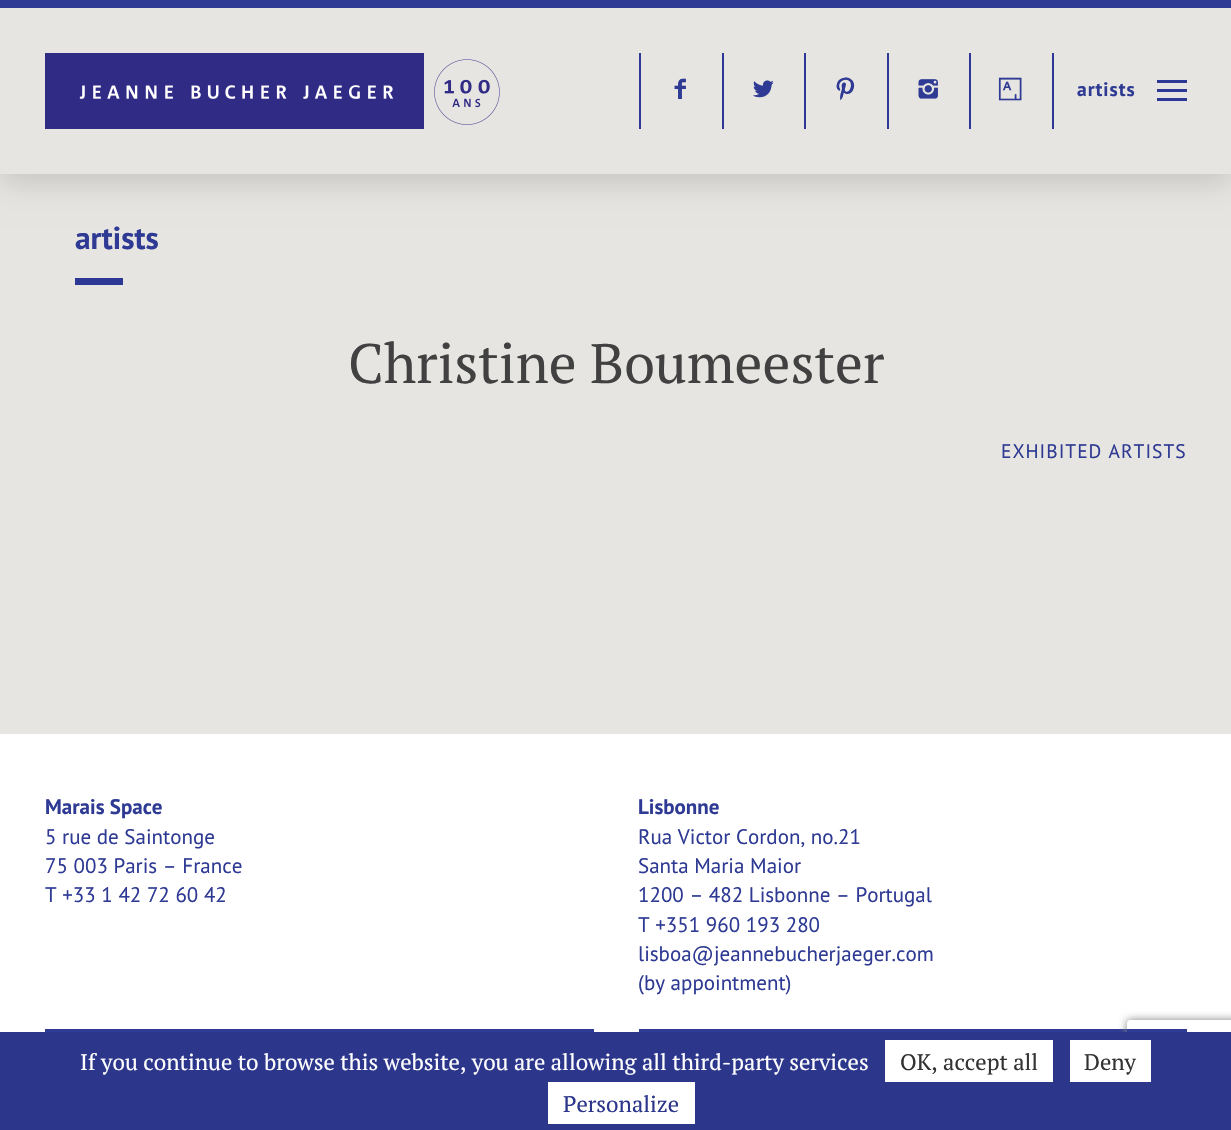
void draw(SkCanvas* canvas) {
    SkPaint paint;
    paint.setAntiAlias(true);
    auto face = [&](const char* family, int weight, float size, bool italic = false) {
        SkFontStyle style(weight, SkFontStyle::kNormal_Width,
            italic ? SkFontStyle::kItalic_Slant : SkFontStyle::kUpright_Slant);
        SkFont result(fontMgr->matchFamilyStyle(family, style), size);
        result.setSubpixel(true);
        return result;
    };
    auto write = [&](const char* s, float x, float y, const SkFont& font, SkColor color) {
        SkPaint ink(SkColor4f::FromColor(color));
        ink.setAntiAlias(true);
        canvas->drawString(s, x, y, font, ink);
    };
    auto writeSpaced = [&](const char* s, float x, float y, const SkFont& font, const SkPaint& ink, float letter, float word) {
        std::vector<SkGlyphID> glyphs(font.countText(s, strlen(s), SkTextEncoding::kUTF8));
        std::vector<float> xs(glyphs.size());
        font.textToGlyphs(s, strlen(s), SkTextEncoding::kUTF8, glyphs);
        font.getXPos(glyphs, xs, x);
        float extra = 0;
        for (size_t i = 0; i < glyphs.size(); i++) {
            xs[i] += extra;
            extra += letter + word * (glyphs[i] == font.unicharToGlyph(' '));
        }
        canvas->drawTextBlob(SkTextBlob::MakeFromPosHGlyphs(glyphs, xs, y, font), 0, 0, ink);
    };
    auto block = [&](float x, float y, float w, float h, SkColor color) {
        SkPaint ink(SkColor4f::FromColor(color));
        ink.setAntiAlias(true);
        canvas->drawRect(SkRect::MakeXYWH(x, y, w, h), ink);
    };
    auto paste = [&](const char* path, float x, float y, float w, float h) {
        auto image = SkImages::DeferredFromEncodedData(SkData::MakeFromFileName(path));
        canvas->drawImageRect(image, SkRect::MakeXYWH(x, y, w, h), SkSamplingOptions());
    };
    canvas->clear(SK_ColorWHITE);
    block(0, 174, 1231, 560, SkColorSetRGB(231, 229, 225));
    paint.setColor(SkColorSetARGB(38, 0, 0, 0));
    paint.setMaskFilter(SkMaskFilter::MakeBlur(kNormal_SkBlurStyle, 15));
    canvas->drawRect(SkRect::MakeXYWH(0, 8, 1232, 174), paint);
    paint.setMaskFilter(nullptr);
    block(0, 8, 1231, 166, SkColorSetRGB(231, 229, 225));
    block(0, 0, 1231, 8, SkColorSetRGB(46, 58, 147));
    paste("pic1.png", 45, 53, 455, 76);
    block(639, 53, 2, 76, SkColorSetRGB(45, 55, 149));
    auto kFont1 = face("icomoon", 400, 22.5f);
    write("f", 669, 99, kFont1, SkColorSetRGB(46, 58, 147));
    block(722, 53, 2, 76, SkColorSetRGB(45, 55, 149));
    write("t", 752, 99, kFont1, SkColorSetRGB(46, 58, 147));
    block(804, 53, 2, 76, SkColorSetRGB(45, 55, 149));
    write("p", 834, 99, kFont1, SkColorSetRGB(46, 58, 147));
    block(887, 53, 2, 76, SkColorSetRGB(45, 55, 149));
    write("i", 917, 99, kFont1, SkColorSetRGB(46, 58, 147));
    block(1052, 53, 2, 76, SkColorSetRGB(45, 55, 149));
    block(969, 53, 2, 76, SkColorSetRGB(45, 55, 149));
    write("Y", 999, 99, kFont1, SkColorSetRGB(46, 58, 147));
    auto kFont2 = face("PT Sans", 700, 19.5f);
    paint.setColor(SkColorSetRGB(46, 58, 147));
    writeSpaced("artists", 1077, 96, kFont2, paint, 1, 0);
    block(1157, 80, 30, 3, SkColorSetRGB(45, 55, 149));
    block(1157, 89, 30, 3, SkColorSetRGB(45, 55, 149));
    block(1157, 98, 30, 3, SkColorSetRGB(45, 55, 149));
    block(75, 278, 48, 7, SkColorSetRGB(45, 55, 149));
    auto kFont3 = face("PT Sans", 700, 31.5f);
    write("artists", 75, 249, kFont3, SkColorSetRGB(46, 58, 147));
    auto kFont4 = face("PT Serif", 400, 55.5f);
    write("Christine Boumeester", 348, 383, kFont4, SkColorSetRGB(65, 65, 65));
    auto kFont5 = face("PT Sans", 400, 19.5f);
    writeSpaced("EXHIBITED ARTISTS", 1001, 458, kFont5, paint, 1, 0);
    block(45, 1029, 549, 3, SkColorSetRGB(46, 58, 147));
    auto kFont6 = face("PT Sans", 700, 21);
    write("Marais Space", 45, 814, kFont6, SkColorSetRGB(46, 58, 147));
    auto kFont7 = face("PT Sans", 400, 21);
    write("5 rue de Saintonge", 45, 844, kFont7, SkColorSetRGB(46, 58, 147));
    write("75 003 Paris – France", 45, 873, kFont7, SkColorSetRGB(46, 58, 147));
    write("T +33 1 42 72 60 42", 45, 902, kFont7, SkColorSetRGB(46, 58, 147));
    block(639, 1029, 548, 3, SkColorSetRGB(46, 58, 147));
    write("Lisbonne", 638, 814, kFont6, SkColorSetRGB(46, 58, 147));
    write("Rua Victor Cordon, no.21", 638, 844, kFont7, SkColorSetRGB(46, 58, 147));
    write("Santa Maria Maior", 638, 873, kFont7, SkColorSetRGB(46, 58, 147));
    write("1200 – 482 Lisbonne – Portugal", 638, 902, kFont7, SkColorSetRGB(46, 58, 147));
    write("T +351 960 193 280", 638, 932, kFont7, SkColorSetRGB(46, 58, 147));
    write("lisboa@jeannebucherjaeger.com", 638, 961, kFont7, SkColorSetRGB(46, 58, 147));
    write("(by appointment)", 638, 990, kFont7, SkColorSetRGB(46, 58, 147));
    canvas->save();
    canvas->clipPath(SkPathBuilder(SkPathFillType::kEvenOdd).moveTo(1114, 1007).lineTo(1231, 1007).lineTo(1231, 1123).lineTo(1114, 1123).close().moveTo(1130, 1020).lineTo(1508, 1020).cubicTo(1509.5f, 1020, 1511, 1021.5f, 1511, 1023).lineTo(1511, 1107).cubicTo(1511, 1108.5f, 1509.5f, 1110, 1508, 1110).lineTo(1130, 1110).cubicTo(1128.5f, 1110, 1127, 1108.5f, 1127, 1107).lineTo(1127, 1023).cubicTo(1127, 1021.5f, 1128.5f, 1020, 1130, 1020).close().detach(), true);
    paint.setColor(SkColorSetRGB(128, 128, 128));
    paint.setMaskFilter(SkMaskFilter::MakeBlur(kNormal_SkBlurStyle, 4));
    canvas->drawRoundRect(SkRect::MakeXYWH(1127, 1020, 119, 90), 3, 3, paint);
    paint.setMaskFilter(nullptr);
    canvas->restore();
    block(0, 1032, 1231, 98, SkColorSetRGB(44, 54, 139));
    auto kFont8 = face("PT Serif", 400, 22.5f);
    write("If you continue to browse this website, you are allowing all third-party services", 80, 1070, kFont8, SK_ColorWHITE);
    block(885, 1040, 168, 42, SK_ColorWHITE);
    write("OK, accept all", 900, 1070, kFont8, SkColorSetRGB(51, 51, 51));
    block(1070, 1040, 81, 42, SK_ColorWHITE);
    write("Deny", 1084, 1070, kFont8, SkColorSetRGB(51, 51, 51));
    block(548, 1082, 147, 42, SK_ColorWHITE);
    write("Personalize", 563, 1112, kFont8, SkColorSetRGB(44, 54, 139));
}
